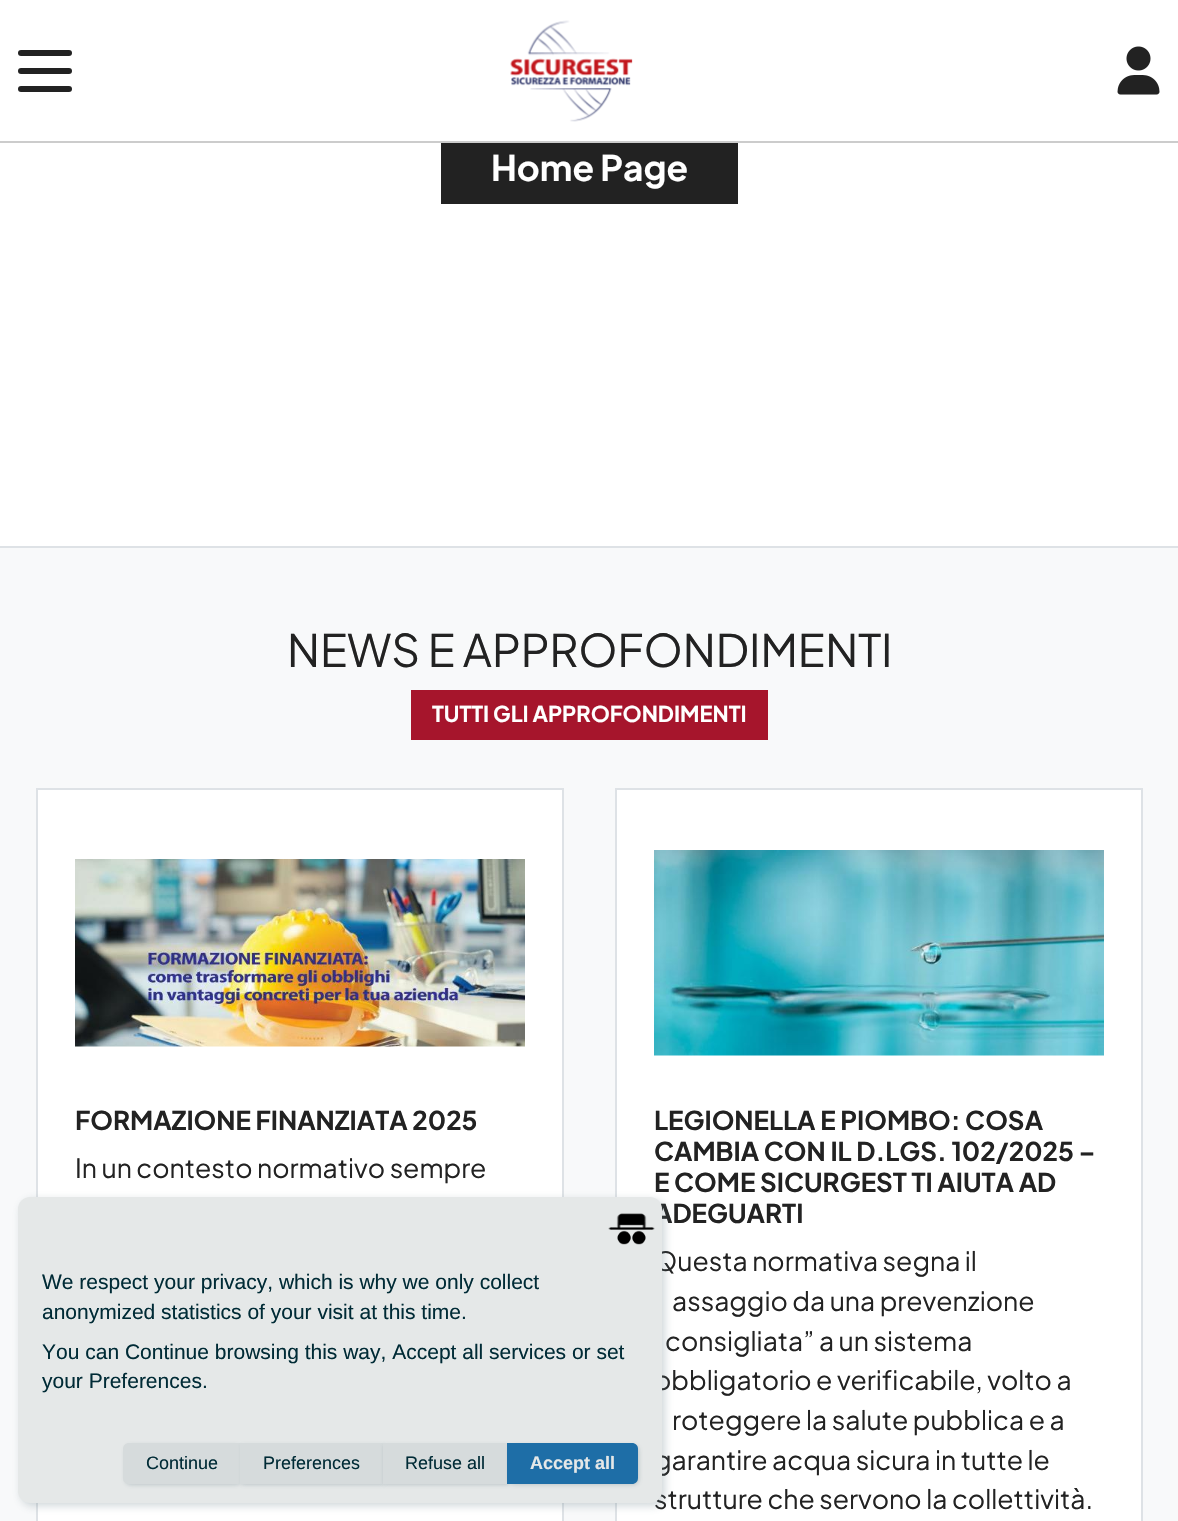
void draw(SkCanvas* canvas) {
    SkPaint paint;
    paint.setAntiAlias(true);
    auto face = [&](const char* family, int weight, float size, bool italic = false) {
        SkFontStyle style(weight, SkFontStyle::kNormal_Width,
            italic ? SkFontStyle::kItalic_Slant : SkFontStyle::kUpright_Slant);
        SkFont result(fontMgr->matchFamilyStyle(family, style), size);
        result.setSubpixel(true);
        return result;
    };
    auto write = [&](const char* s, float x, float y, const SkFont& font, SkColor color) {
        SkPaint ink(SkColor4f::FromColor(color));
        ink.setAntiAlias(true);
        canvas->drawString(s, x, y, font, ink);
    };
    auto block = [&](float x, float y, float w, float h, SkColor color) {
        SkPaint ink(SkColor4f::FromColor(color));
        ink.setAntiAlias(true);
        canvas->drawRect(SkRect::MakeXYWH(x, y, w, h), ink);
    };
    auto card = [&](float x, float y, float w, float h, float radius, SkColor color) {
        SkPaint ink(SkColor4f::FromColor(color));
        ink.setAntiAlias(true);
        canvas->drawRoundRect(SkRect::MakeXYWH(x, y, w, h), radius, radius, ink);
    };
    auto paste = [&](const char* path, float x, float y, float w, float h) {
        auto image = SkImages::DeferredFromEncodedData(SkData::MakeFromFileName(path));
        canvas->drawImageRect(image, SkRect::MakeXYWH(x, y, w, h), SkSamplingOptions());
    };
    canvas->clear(SK_ColorWHITE);
    block(0, 141, 1178, 2, SkColorSetRGB(204, 204, 204));
    card(18, 50, 54, 6, 3, SkColorSetRGB(34, 34, 34));
    card(18, 68, 54, 6, 3, SkColorSetRGB(34, 34, 34));
    card(18, 86, 54, 6, 3, SkColorSetRGB(34, 34, 34));
    paste("pic1.png", 510, 20, 123, 102);
    paste("pic2.png", 1117, 46, 43, 49);
    block(441, 143, 297, 61, SkColorSetRGB(34, 34, 34));
    auto kFont1 = face("Plus Jakarta Sans", 700, 35.25f);
    write("Home Page", 491, 181, kFont1, SK_ColorWHITE);
    block(0, 548, 1178, 973, SkColorSetRGB(248, 249, 250));
    block(0, 546, 1178, 2, SkColorSetRGB(222, 226, 230));
    auto kFont2 = face("Plus Jakarta Sans", 400, 44.75f);
    write("NEWS E APPROFONDIMENTI", 287, 667, kFont2, SkColorSetRGB(34, 34, 34));
    block(411, 690, 357, 50, SkColorSetRGB(166, 21, 44));
    auto kFont3 = face("Plus Jakarta Sans", 700, 21.8f);
    write("TUTTI GLI APPROFONDIMENTI", 432, 722, kFont3, SK_ColorWHITE);
    paint.setColor(SK_ColorWHITE);
    canvas->drawRect(SkRect::MakeXYWH(37, 789, 526, 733), paint);
    paint.setStyle(SkPaint::kStroke_Style);
    paint.setStrokeWidth(2);
    paint.setColor(SkColorSetRGB(222, 226, 230));
    canvas->drawRect(SkRect::MakeXYWH(37, 789, 526, 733), paint);
    paste("pic3.png", 75, 859, 450, 188);
    auto kFont4 = face("Plus Jakarta Sans", 700, 25.9f);
    write("FORMAZIONE FINANZIATA 2025", 75, 1130, kFont4, SkColorSetRGB(34, 34, 34));
    auto kFont5 = face("Plus Jakarta Sans", 400, 26.5f);
    write("In un contesto normativo sempre", 75, 1178, kFont5, SkColorSetRGB(34, 34, 34));
    paint.setStyle(SkPaint::kFill_Style);
    paint.setColor(SK_ColorWHITE);
    canvas->drawRect(SkRect::MakeXYWH(616, 789, 526, 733), paint);
    paint.setStyle(SkPaint::kStroke_Style);
    paint.setColor(SkColorSetRGB(222, 226, 230));
    canvas->drawRect(SkRect::MakeXYWH(616, 789, 526, 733), paint);
    paste("pic4.png", 654, 850, 450, 206);
    write("LEGIONELLA E PIOMBO: COSA", 654, 1130, kFont4, SkColorSetRGB(34, 34, 34));
    write("CAMBIA CON IL D.LGS. 102/2025 –", 654, 1161, kFont4, SkColorSetRGB(34, 34, 34));
    write("E COME SICURGEST TI AIUTA AD", 654, 1192, kFont4, SkColorSetRGB(34, 34, 34));
    write("ADEGUARTI", 654, 1223, kFont4, SkColorSetRGB(34, 34, 34));
    write("Questa normativa segna il", 654, 1271, kFont5, SkColorSetRGB(34, 34, 34));
    write("assaggio da una prevenzione", 672, 1311, kFont5, SkColorSetRGB(34, 34, 34));
    write("consigliata” a un sistema", 665, 1351, kFont5, SkColorSetRGB(34, 34, 34));
    write("obbligatorio e verificabile, volto a", 654, 1390, kFont5, SkColorSetRGB(34, 34, 34));
    write("roteggere la salute pubblica e a", 672, 1430, kFont5, SkColorSetRGB(34, 34, 34));
    write("garantire acqua sicura in tutte le", 654, 1470, kFont5, SkColorSetRGB(34, 34, 34));
    write("strutture che servono la collettività.", 654, 1509, kFont5, SkColorSetRGB(34, 34, 34));
    paint.setStyle(SkPaint::kFill_Style);
    paint.setColor(SkColorSetARGB(77, 101, 123, 131));
    paint.setMaskFilter(SkMaskFilter::MakeBlur(kNormal_SkBlurStyle, 4));
    canvas->drawRoundRect(SkRect::MakeXYWH(21, 1200, 644, 306), 12, 12, paint);
    paint.setMaskFilter(nullptr);
    card(18, 1197, 644, 306, 12, SkColorSetRGB(229, 232, 232));
    paste("pic5.png", 608, 1213, 47, 17);
    paste("pic6.png", 617, 1230, 29, 15);
    auto kFont6 = face("Liberation Sans", 400, 21);
    write("We respect your privacy, which is why we only collect", 42, 1289, kFont6, SkColorSetRGB(0, 43, 54));
    write("anonymized statistics of your visit at this time.", 42, 1319, kFont6, SkColorSetRGB(0, 43, 54));
    write("You can Continue browsing this way, Accept all services or set", 42, 1359, kFont6, SkColorSetRGB(0, 43, 54));
    write("your Preferences.", 42, 1388, kFont6, SkColorSetRGB(0, 43, 54));
    paint.setMaskFilter(SkMaskFilter::MakeBlur(kNormal_SkBlurStyle, 2));
    canvas->drawRoundRect(SkRect::MakeXYWH(125, 1445, 117, 40), 6, 6, paint);
    paint.setMaskFilter(nullptr);
    paint.setColor(SkColorSetRGB(214, 219, 220));
    canvas->drawPath(SkPathBuilder().moveTo(129, 1443).lineTo(240, 1443).lineTo(240, 1484).lineTo(129, 1484).cubicTo(125.5f, 1484, 123, 1481.5f, 123, 1478).lineTo(123, 1449).cubicTo(123, 1445.5f, 125.5f, 1443, 129, 1443).close().detach(), paint);
    auto kFont7 = face("Liberation Sans", 400, 18);
    write("Continue", 146, 1469, kFont7, SkColorSetRGB(0, 43, 54));
    paint.setColor(SkColorSetARGB(77, 101, 123, 131));
    paint.setMaskFilter(SkMaskFilter::MakeBlur(kNormal_SkBlurStyle, 2));
    canvas->drawRect(SkRect::MakeXYWH(242, 1445, 142, 40), paint);
    paint.setMaskFilter(nullptr);
    block(240, 1443, 143, 41, SkColorSetRGB(214, 219, 220));
    write("Preferences", 263, 1469, kFont7, SkColorSetRGB(0, 43, 54));
    paint.setMaskFilter(SkMaskFilter::MakeBlur(kNormal_SkBlurStyle, 2));
    canvas->drawRect(SkRect::MakeXYWH(384, 1445, 125, 40), paint);
    paint.setMaskFilter(nullptr);
    block(383, 1443, 124, 41, SkColorSetRGB(214, 219, 220));
    write("Refuse all", 405, 1469, kFont7, SkColorSetRGB(0, 43, 54));
    paint.setMaskFilter(SkMaskFilter::MakeBlur(kNormal_SkBlurStyle, 2));
    canvas->drawRoundRect(SkRect::MakeXYWH(509, 1445, 130, 40), 6, 6, paint);
    paint.setMaskFilter(nullptr);
    paint.setColor(SkColorSetRGB(30, 110, 167));
    canvas->drawPath(SkPathBuilder().moveTo(507, 1443).lineTo(632, 1443).cubicTo(635.5f, 1443, 638, 1445.5f, 638, 1449).lineTo(638, 1478).cubicTo(638, 1481.5f, 635.5f, 1484, 632, 1484).lineTo(507, 1484).close().detach(), paint);
    auto kFont8 = face("Liberation Sans", 700, 18);
    write("Accept all", 530, 1469, kFont8, SkColorSetRGB(229, 232, 232));
}
